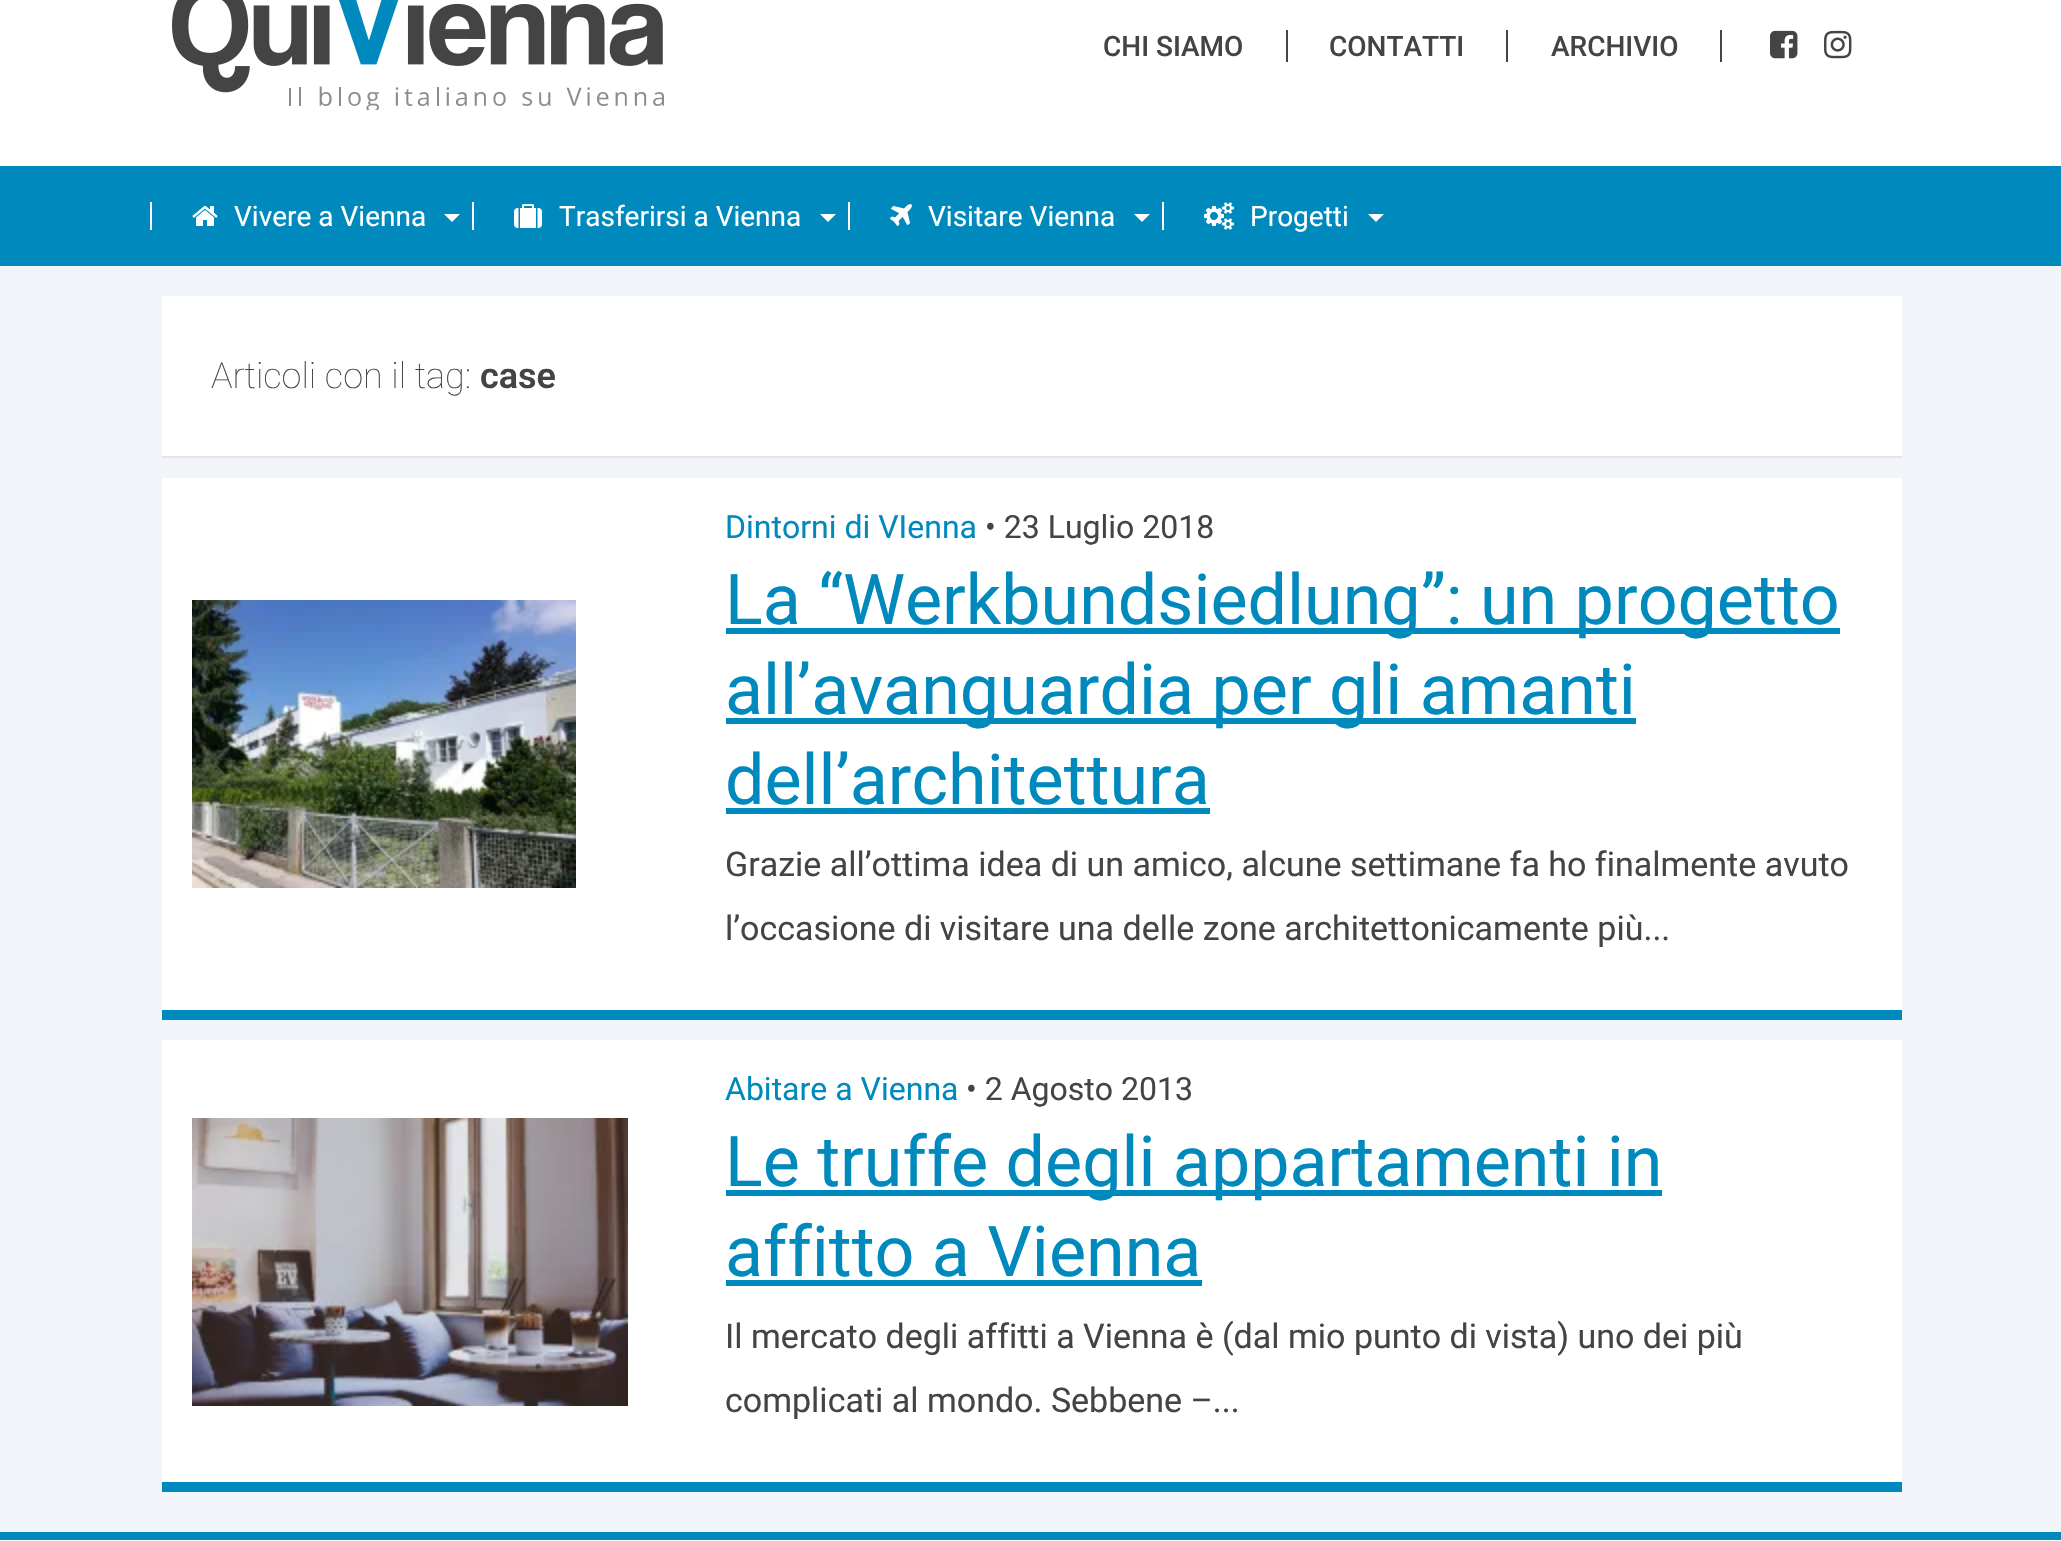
void draw(SkCanvas* canvas) {
    SkPaint paint;
    paint.setAntiAlias(true);
    auto face = [&](const char* family, int weight, float size, bool italic = false) {
        SkFontStyle style(weight, SkFontStyle::kNormal_Width,
            italic ? SkFontStyle::kItalic_Slant : SkFontStyle::kUpright_Slant);
        SkFont result(fontMgr->matchFamilyStyle(family, style), size);
        result.setSubpixel(true);
        return result;
    };
    auto write = [&](const char* s, float x, float y, const SkFont& font, SkColor color) {
        SkPaint ink(SkColor4f::FromColor(color));
        ink.setAntiAlias(true);
        canvas->drawString(s, x, y, font, ink);
    };
    auto block = [&](float x, float y, float w, float h, SkColor color) {
        SkPaint ink(SkColor4f::FromColor(color));
        ink.setAntiAlias(true);
        canvas->drawRect(SkRect::MakeXYWH(x, y, w, h), ink);
    };
    auto paste = [&](const char* path, float x, float y, float w, float h) {
        auto image = SkImages::DeferredFromEncodedData(SkData::MakeFromFileName(path));
        canvas->drawImageRect(image, SkRect::MakeXYWH(x, y, w, h), SkSamplingOptions());
    };
    canvas->clear(SkColorSetRGB(241, 244, 249));
    block(0, 0, 2061, 166, SK_ColorWHITE);
    paste("pic1.png", 172, 0, 492, 110);
    auto kFont1 = face("Roboto", 500, 28);
    write("CHI SIAMO", 1103, 56, kFont1, SkColorSetRGB(68, 68, 68));
    block(1286, 30, 2, 32, SkColorSetRGB(68, 68, 68));
    write("CONTATTI", 1329, 56, kFont1, SkColorSetRGB(68, 68, 68));
    block(1506, 30, 2, 32, SkColorSetRGB(68, 68, 68));
    write("ARCHIVIO", 1551, 56, kFont1, SkColorSetRGB(68, 68, 68));
    block(1720, 30, 2, 32, SkColorSetRGB(68, 68, 68));
    paste("pic2.png", 1770, 30, 28, 29);
    paste("pic3.png", 1824, 30, 28, 29);
    block(0, 166, 2061, 100, SkColorSetRGB(0, 137, 189));
    block(150, 202, 2, 28, SK_ColorWHITE);
    paste("pic4.png", 192, 206, 26, 20);
    auto kFont2 = face("Roboto", 400, 28);
    write("Vivere a Vienna", 234, 226, kFont2, SK_ColorWHITE);
    paint.setColor(SK_ColorWHITE);
    canvas->drawPath(SkPathBuilder().moveTo(444, 214).lineTo(460, 214).lineTo(452, 222).close().detach(), paint);
    block(472, 202, 2, 28, SK_ColorWHITE);
    paste("pic5.png", 514, 204, 28, 24);
    write("Trasferirsi a Vienna", 559, 226, kFont2, SK_ColorWHITE);
    canvas->drawPath(SkPathBuilder().moveTo(820, 214).lineTo(836, 214).lineTo(828, 222).close().detach(), paint);
    block(848, 202, 2, 28, SK_ColorWHITE);
    paste("pic6.png", 890, 204, 22, 22);
    write("Visitare Vienna", 928, 226, kFont2, SK_ColorWHITE);
    canvas->drawPath(SkPathBuilder().moveTo(1134, 214).lineTo(1150, 214).lineTo(1142, 222).close().detach(), paint);
    block(1162, 202, 2, 28, SK_ColorWHITE);
    paste("pic7.png", 1204, 202, 30, 28);
    write("Progetti", 1250, 226, kFont2, SK_ColorWHITE);
    canvas->drawPath(SkPathBuilder().moveTo(1368, 214).lineTo(1384, 214).lineTo(1376, 222).close().detach(), paint);
    block(162, 296, 1740, 160, SK_ColorWHITE);
    block(162, 456, 1740, 2, SkColorSetRGB(229, 229, 229));
    auto kFont3 = face("Roboto", 100, 36);
    write("Articoli con il tag:", 211, 388, kFont3, SkColorSetRGB(68, 68, 68));
    auto kFont4 = face("Roboto", 600, 36);
    write("case", 480, 388, kFont4, SkColorSetRGB(68, 68, 68));
    block(162, 478, 1740, 532, SK_ColorWHITE);
    block(162, 1010, 1740, 10, SkColorSetRGB(0, 137, 189));
    paste("pic8.png", 192, 600, 384, 288);
    auto kFont5 = face("Roboto", 400, 32);
    write("Dintorni di VIenna", 725, 538, kFont5, SkColorSetRGB(0, 137, 189));
    write("• 23 Luglio 2018", 985, 538, kFont5, SkColorSetRGB(68, 68, 68));
    block(726, 628, 1114, 6, SkColorSetRGB(0, 137, 189));
    auto kFont6 = face("Roboto", 400, 70);
    write("La “Werkbundsiedlung”: un progetto", 725, 624, kFont6, SkColorSetRGB(0, 137, 189));
    block(726, 718, 910, 6, SkColorSetRGB(0, 137, 189));
    write("all’avanguardia per gli amanti", 725, 714, kFont6, SkColorSetRGB(0, 137, 189));
    write("dell’architettura", 725, 804, kFont6, SkColorSetRGB(0, 137, 189));
    block(726, 808, 484, 6, SkColorSetRGB(0, 137, 189));
    auto kFont7 = face("Roboto", 400, 34);
    write("Grazie all’ottima idea di un amico, alcune settimane fa ho finalmente avuto", 725, 876, kFont7, SkColorSetRGB(68, 68, 68));
    write("l’occasione di visitare una delle zone architettonicamente più...", 725, 940, kFont7, SkColorSetRGB(68, 68, 68));
    block(162, 1040, 1740, 442, SK_ColorWHITE);
    block(162, 1482, 1740, 10, SkColorSetRGB(0, 137, 189));
    paste("pic9.png", 192, 1118, 436, 288);
    write("Abitare a Vienna", 725, 1100, kFont5, SkColorSetRGB(0, 137, 189));
    write("• 2 Agosto 2013", 966, 1100, kFont5, SkColorSetRGB(68, 68, 68));
    block(726, 1190, 936, 6, SkColorSetRGB(0, 137, 189));
    write("Le truffe degli appartamenti in", 725, 1186, kFont6, SkColorSetRGB(0, 137, 189));
    write("affitto a Vienna", 725, 1276, kFont6, SkColorSetRGB(0, 137, 189));
    block(726, 1280, 476, 6, SkColorSetRGB(0, 137, 189));
    write("Il mercato degli affitti a Vienna è (dal mio punto di vista) uno dei più", 725, 1348, kFont7, SkColorSetRGB(68, 68, 68));
    write("complicati al mondo. Sebbene –...", 725, 1412, kFont7, SkColorSetRGB(68, 68, 68));
    block(0, 1540, 2061, 1, SK_ColorWHITE);
    block(0, 1532, 2061, 8, SkColorSetRGB(0, 137, 189));
}
